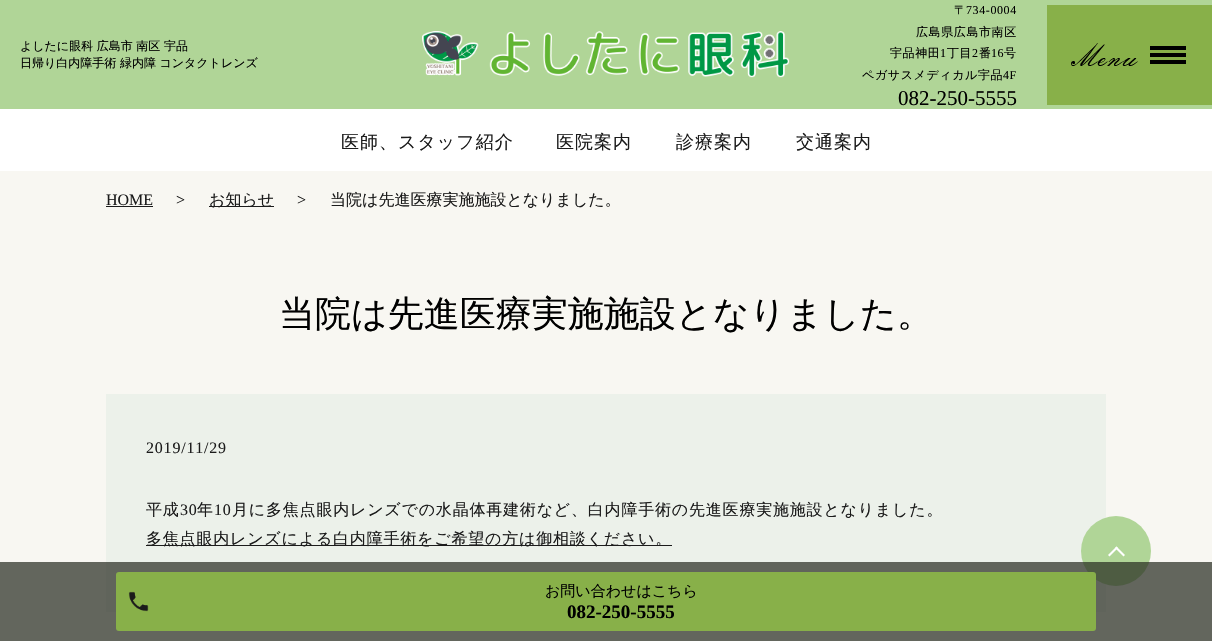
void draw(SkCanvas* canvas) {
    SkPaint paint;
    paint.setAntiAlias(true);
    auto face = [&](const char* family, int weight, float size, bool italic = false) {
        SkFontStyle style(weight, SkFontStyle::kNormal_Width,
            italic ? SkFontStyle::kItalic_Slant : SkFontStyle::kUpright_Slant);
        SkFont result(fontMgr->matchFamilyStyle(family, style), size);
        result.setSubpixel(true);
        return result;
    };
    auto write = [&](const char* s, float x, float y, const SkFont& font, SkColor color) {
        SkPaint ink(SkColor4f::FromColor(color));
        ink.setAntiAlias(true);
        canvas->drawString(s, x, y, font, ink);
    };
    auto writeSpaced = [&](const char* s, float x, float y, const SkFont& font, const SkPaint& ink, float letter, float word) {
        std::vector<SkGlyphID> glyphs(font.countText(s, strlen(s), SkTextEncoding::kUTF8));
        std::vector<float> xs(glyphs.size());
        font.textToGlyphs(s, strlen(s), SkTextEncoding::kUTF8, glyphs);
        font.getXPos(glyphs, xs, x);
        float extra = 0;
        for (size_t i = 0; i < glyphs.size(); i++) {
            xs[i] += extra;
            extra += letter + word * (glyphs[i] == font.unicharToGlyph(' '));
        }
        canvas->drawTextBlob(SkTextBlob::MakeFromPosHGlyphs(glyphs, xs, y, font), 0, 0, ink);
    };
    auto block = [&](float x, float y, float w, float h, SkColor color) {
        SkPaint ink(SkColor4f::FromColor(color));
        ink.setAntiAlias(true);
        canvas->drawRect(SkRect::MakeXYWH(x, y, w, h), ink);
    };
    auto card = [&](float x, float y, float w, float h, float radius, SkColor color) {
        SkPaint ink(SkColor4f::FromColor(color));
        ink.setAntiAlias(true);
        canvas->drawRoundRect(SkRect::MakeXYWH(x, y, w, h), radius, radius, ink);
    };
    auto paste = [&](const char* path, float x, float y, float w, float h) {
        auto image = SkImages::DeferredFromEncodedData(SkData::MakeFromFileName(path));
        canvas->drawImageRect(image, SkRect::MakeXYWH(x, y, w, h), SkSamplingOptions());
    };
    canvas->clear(SkColorSetRGB(248, 247, 242));
    block(0, 0, 1212, 109, SkColorSetRGB(176, 213, 151));
    auto kFont1 = face("WenQuanYi Zen Hei", 500, 12);
    write("よしたに眼科 広島市 南区 宇品", 20, 50, kFont1, SK_ColorBLACK);
    write("日帰り白内障手術 緑内障 コンタクトレンズ", 20, 67, kFont1, SK_ColorBLACK);
    paste("pic1.png", 422, 31, 368, 47);
    paint.setColor(SK_ColorBLACK);
    writeSpaced("〒", 954, 14, kFont1, paint, 0.6f, 0);
    auto kFont2 = face("Liberation Serif", 400, 12);
    writeSpaced("734-0004", 966, 14, kFont2, paint, 0.6f, 0);
    writeSpaced("広島県広島市南区", 916, 36, kFont1, paint, 0.6f, 0);
    writeSpaced("宇品神田", 890, 57, kFont1, paint, 0.6f, 0);
    writeSpaced("1", 940, 57, kFont2, paint, 0.6f, 0);
    writeSpaced("丁目", 947, 57, kFont1, paint, 0.6f, 0);
    writeSpaced("2", 972, 57, kFont2, paint, 0.6f, 0);
    writeSpaced("番", 979, 57, kFont1, paint, 0.6f, 0);
    writeSpaced("16", 991, 57, kFont2, paint, 0.6f, 0);
    writeSpaced("号", 1004, 57, kFont1, paint, 0.6f, 0);
    writeSpaced("ペガサスメディカル宇品", 862, 79, kFont1, paint, 0.6f, 0);
    writeSpaced("4F", 1003, 79, kFont2, paint, 0.6f, 0);
    auto kFont3 = face("Liberation Serif", 400, 21);
    write("082-250-5555", 898, 105, kFont3, SK_ColorBLACK);
    block(1047, 5, 165, 100, SkColorSetRGB(136, 176, 73));
    paste("pic2.png", 1071, 43, 67, 23);
    block(1150, 46, 36, 4, SK_ColorBLACK);
    block(1150, 60, 36, 4, SK_ColorBLACK);
    block(1150, 53, 36, 4, SK_ColorBLACK);
    block(0, 109, 1212, 62, SK_ColorWHITE);
    auto kFont4 = face("WenQuanYi Zen Hei", 500, 18);
    paint.setColor(SkColorSetRGB(27, 27, 27));
    writeSpaced("医師、スタッフ紹介", 341, 148, kFont4, paint, 1, 0);
    writeSpaced("医院案内", 556, 148, kFont4, paint, 1, 0);
    writeSpaced("診療案内", 676, 148, kFont4, paint, 1, 0);
    writeSpaced("交通案内", 796, 148, kFont4, paint, 1, 0);
    auto kFont5 = face("Liberation Serif", 400, 16);
    write("HOME", 106, 205, kFont5, SkColorSetRGB(27, 27, 27));
    block(106, 206, 47, 1, SkColorSetRGB(27, 27, 27));
    write(">", 176, 205, kFont5, SkColorSetRGB(27, 27, 27));
    block(209, 206, 65, 1, SkColorSetRGB(27, 27, 27));
    auto kFont6 = face("WenQuanYi Zen Hei", 500, 16);
    write("お知らせ", 209, 205, kFont6, SkColorSetRGB(27, 27, 27));
    write(">", 297, 205, kFont5, SkColorSetRGB(27, 27, 27));
    write("当院は先進医療実施施設となりました。", 330, 205, kFont6, SkColorSetRGB(27, 27, 27));
    auto kFont7 = face("WenQuanYi Zen Hei", 500, 36);
    write("当院は先進医療実施施設となりました。", 279, 326, kFont7, SK_ColorBLACK);
    block(106, 394, 1000, 218, SkColorSetRGB(236, 241, 234));
    writeSpaced("2019/11/29", 146, 453, kFont5, paint, 0.8f, 0);
    writeSpaced("平成", 146, 515, kFont6, paint, 0.8f, 0);
    writeSpaced("30", 180, 515, kFont5, paint, 0.8f, 0);
    writeSpaced("年", 197, 515, kFont6, paint, 0.8f, 0);
    writeSpaced("10", 214, 515, kFont5, paint, 0.8f, 0);
    writeSpaced("月に多焦点眼内レンズでの水晶体再建術など、白内障手術の先進医療実施施設となりました。", 232, 515, kFont6, paint, 0.8f, 0);
    block(146, 545, 526, 1, SkColorSetRGB(27, 27, 27));
    writeSpaced("多焦点眼内レンズによる白内障手術をご希望の方は御相談ください。", 146, 544, kFont6, paint, 0.8f, 0);
    paint.setColor(SkColorSetRGB(176, 213, 151));
    canvas->drawCircle(1116, 551, 35, paint);
    paint.setColor(SK_ColorWHITE);
    canvas->drawPath(SkPathBuilder().moveTo(1116.5f, 546.5f).lineTo(1125, 555).lineTo(1123.5f, 556.5f).lineTo(1115, 548).close().detach(), paint);
    canvas->drawPath(SkPathBuilder().moveTo(1116.5f, 546.5f).lineTo(1118, 548).lineTo(1109.5f, 556.5f).lineTo(1108, 555).close().detach(), paint);
    block(0, 562, 1212, 79, SkColorSetARGB(179, 35, 40, 30));
    card(116, 572, 980, 59, 3, SkColorSetRGB(136, 176, 73));
    paste("pic3.png", 128, 591, 21, 21);
    auto kFont8 = face("WenQuanYi Zen Hei", 500, 15);
    write("お問い合わせはこちら", 545, 596, kFont8, SK_ColorBLACK);
    auto kFont9 = face("Liberation Serif", 700, 19);
    write("082-250-5555", 567, 618, kFont9, SK_ColorBLACK);
}
